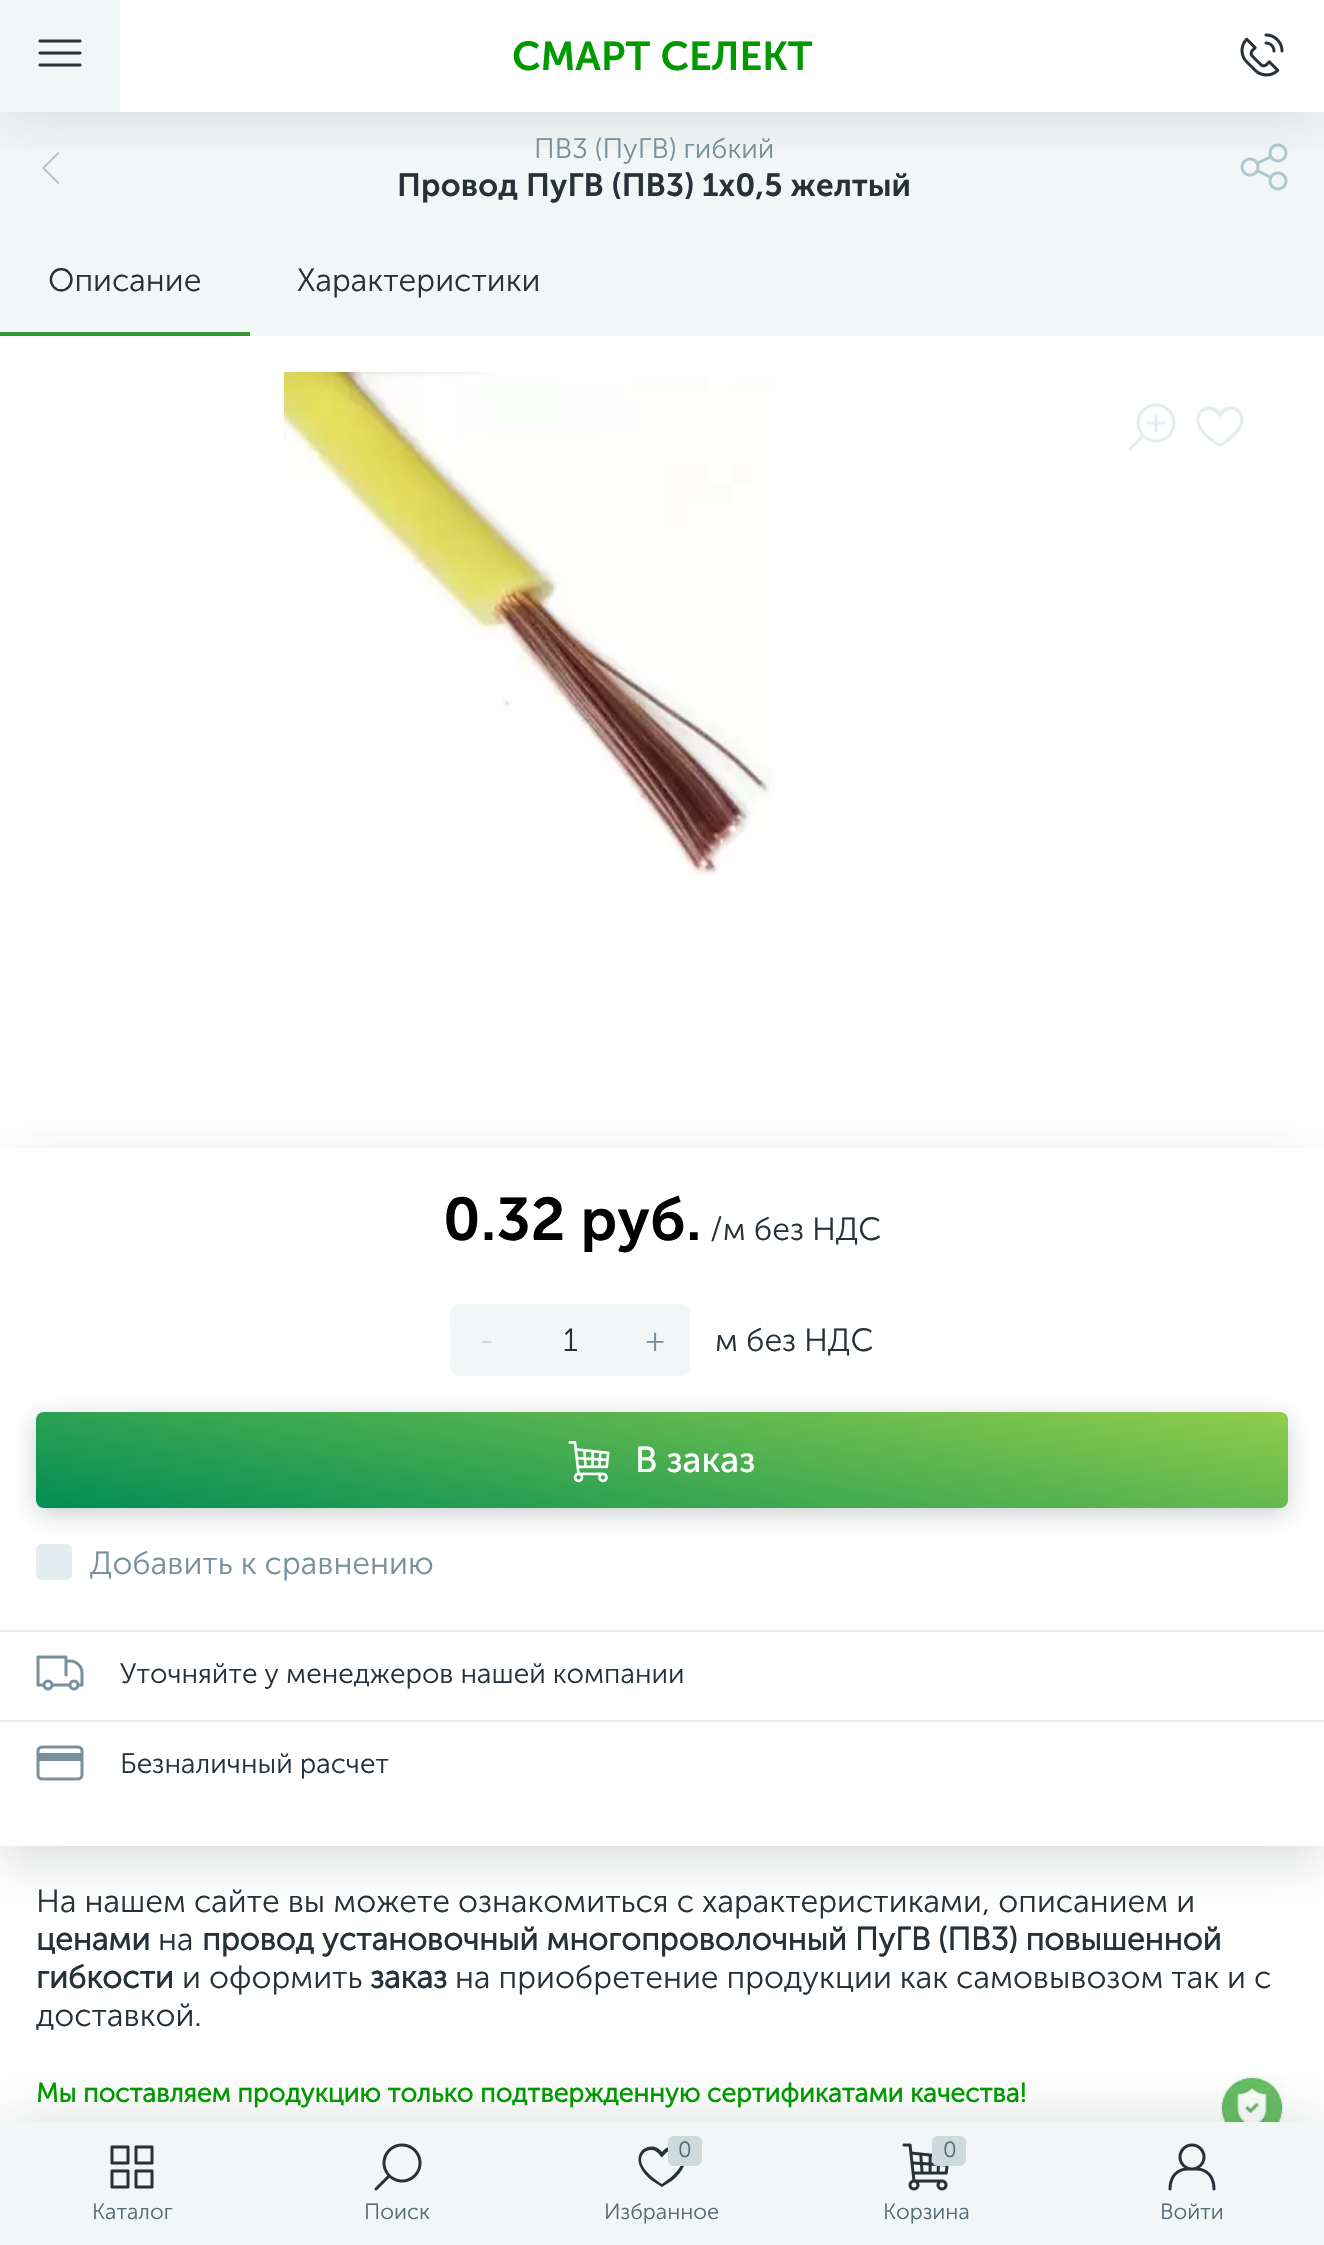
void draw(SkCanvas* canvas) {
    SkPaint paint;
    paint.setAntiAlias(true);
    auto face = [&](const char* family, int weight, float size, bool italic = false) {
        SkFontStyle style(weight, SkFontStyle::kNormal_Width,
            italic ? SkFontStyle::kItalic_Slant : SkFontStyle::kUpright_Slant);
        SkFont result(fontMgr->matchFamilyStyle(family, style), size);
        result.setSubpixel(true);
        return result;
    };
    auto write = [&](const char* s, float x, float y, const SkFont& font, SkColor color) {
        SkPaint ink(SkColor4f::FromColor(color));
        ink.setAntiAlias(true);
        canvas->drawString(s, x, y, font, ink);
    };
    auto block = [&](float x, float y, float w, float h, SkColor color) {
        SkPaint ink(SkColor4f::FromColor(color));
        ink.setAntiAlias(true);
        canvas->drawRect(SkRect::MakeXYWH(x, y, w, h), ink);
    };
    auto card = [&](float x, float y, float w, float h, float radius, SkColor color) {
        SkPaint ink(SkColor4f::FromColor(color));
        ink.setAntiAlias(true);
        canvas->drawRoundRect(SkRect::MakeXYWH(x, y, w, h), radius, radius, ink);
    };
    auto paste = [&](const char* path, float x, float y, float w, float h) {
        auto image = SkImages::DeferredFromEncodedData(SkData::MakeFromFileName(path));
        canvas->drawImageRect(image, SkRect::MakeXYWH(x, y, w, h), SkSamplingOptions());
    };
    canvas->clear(SK_ColorWHITE);
    block(0, 112, 1324, 224, SkColorSetRGB(241, 246, 247));
    paste("pic7.png", 42, 152, 17, 32);
    paste("pic8.png", 1240, 143, 48, 48);
    canvas->save();
    canvas->clipRect(SkRect::MakeXYWH(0, 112, 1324, 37));
    paint.setColor(SkColorSetARGB(41, 38, 50, 56));
    paint.setMaskFilter(SkMaskFilter::MakeBlur(kNormal_SkBlurStyle, 32));
    canvas->drawRect(SkRect::MakeXYWH(0, 0, 1324, 112), paint);
    paint.setMaskFilter(nullptr);
    canvas->restore();
    block(0, 0, 120, 112, SkColorSetRGB(241, 246, 247));
    paste("pic1.png", 38, 39, 44, 28);
    auto kFont1 = face("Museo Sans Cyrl", 600, 40);
    write("СМАРТ СЕЛЕКТ", 512, 70, kFont1, SkColorSetRGB(0, 153, 0));
    paste("pic2.png", 1240, 33, 44, 44);
    paste("pic14.png", 1216, 2072, 69, 50);
    paint.setMaskFilter(SkMaskFilter::MakeBlur(kNormal_SkBlurStyle, 32));
    canvas->drawRect(SkRect::MakeXYWH(0, 2122, 1324, 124), paint);
    paint.setMaskFilter(nullptr);
    block(0, 2122, 1324, 123, SkColorSetRGB(241, 246, 247));
    paste("pic3.png", 110, 2145, 44, 44);
    auto kFont2 = face("Museo Sans Cyrl", 300, 22);
    write("Каталог", 92, 2219, kFont2, SkColorSetRGB(86, 107, 117));
    paste("pic4.png", 374, 2143, 48, 48);
    write("Поиск", 364, 2219, kFont2, SkColorSetRGB(86, 107, 117));
    paint.setColor(SkColorSetRGB(38, 50, 56));
    canvas->drawPath(SkPathBuilder().moveTo(662, 2187).lineTo(651, 2180).cubicTo(622, 2155, 651, 2137, 662, 2152).cubicTo(673, 2137, 702, 2155, 673, 2180).close().moveTo(651, 2150).cubicTo(648, 2150, 645, 2151, 643, 2154).cubicTo(635, 2165, 654, 2179, 662, 2184).cubicTo(669, 2179, 677, 2173, 681, 2165).cubicTo(685, 2157, 679, 2148, 670, 2150).cubicTo(666, 2152, 663, 2157, 662, 2157).cubicTo(660, 2157, 658, 2150, 651, 2150).close().detach(), paint);
    card(668, 2136, 34, 30, 6, SkColorSetRGB(206, 217, 219));
    write("0", 678, 2157, kFont2, SkColorSetRGB(86, 107, 117));
    write("Избранное", 604, 2219, kFont2, SkColorSetRGB(86, 107, 117));
    paste("pic5.png", 902, 2143, 47, 48);
    card(932, 2136, 34, 30, 6, SkColorSetRGB(206, 217, 219));
    write("0", 943, 2157, kFont2, SkColorSetRGB(86, 107, 117));
    write("Корзина", 883, 2219, kFont2, SkColorSetRGB(86, 107, 117));
    paste("pic6.png", 1168, 2143, 48, 48);
    write("Войти", 1160, 2219, kFont2, SkColorSetRGB(86, 107, 117));
    auto kFont3 = face("Museo Sans Cyrl", 300, 28);
    write("ПВ3 (ПуГВ) гибкий", 534, 158, kFont3, SkColorSetRGB(120, 144, 156));
    auto kFont4 = face("Museo Sans Cyrl", 600, 32);
    write("Провод ПуГВ (ПВ3) 1х0,5 желтый", 397, 196, kFont4, SkColorSetRGB(38, 50, 56));
    auto kFont5 = face("Museo Sans Cyrl", 300, 32);
    write("Описание", 48, 291, kFont5, SkColorSetRGB(38, 50, 56));
    block(0, 332, 250, 4, SkColorSetRGB(52, 153, 51));
    write("Характеристики", 297, 291, kFont5, SkColorSetRGB(38, 50, 56));
    paste("pic9.png", 284, 372, 491, 504);
    paste("pic10.png", 1128, 403, 48, 48);
    paint.setColor(SkColorSetRGB(227, 236, 239));
    canvas->drawPath(SkPathBuilder().moveTo(1220, 447).lineTo(1209, 440).cubicTo(1180, 415, 1209, 397, 1220, 412).cubicTo(1231, 397, 1260, 415, 1231, 440).close().moveTo(1209, 410).cubicTo(1206, 410, 1203, 411, 1201, 414).cubicTo(1193, 425, 1212, 439, 1220, 444).cubicTo(1227, 439, 1235, 433, 1239, 425).cubicTo(1243, 417, 1237, 408, 1228, 410).cubicTo(1224, 412, 1221, 417, 1220, 417).cubicTo(1218, 417, 1216, 410, 1209, 410).close().detach(), paint);
    canvas->save();
    canvas->clipPath(SkPathBuilder(SkPathFillType::kEvenOdd).moveTo(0, 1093).lineTo(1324, 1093).lineTo(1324, 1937).lineTo(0, 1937).close().moveTo(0, 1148).lineTo(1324, 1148).lineTo(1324, 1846).lineTo(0, 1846).close().detach(), true);
    paint.setColor(SkColorSetARGB(41, 38, 50, 56));
    paint.setMaskFilter(SkMaskFilter::MakeBlur(kNormal_SkBlurStyle, 24));
    canvas->drawRect(SkRect::MakeXYWH(0, 1166, 1324, 698), paint);
    paint.setMaskFilter(nullptr);
    canvas->restore();
    auto kFont6 = face("Museo Sans Cyrl", 600, 60);
    write("0.32 руб.", 443, 1240, kFont6, SK_ColorBLACK);
    write("/м без НДС", 710, 1240, kFont5, SkColorSetRGB(38, 50, 56));
    paint.setColor(SkColorSetRGB(241, 246, 247));
    canvas->drawPath(SkPathBuilder().moveTo(460, 1304).lineTo(522, 1304).lineTo(522, 1376).lineTo(460, 1376).cubicTo(454.5f, 1376, 450, 1371.5f, 450, 1366).lineTo(450, 1314).cubicTo(450, 1308.5f, 454.5f, 1304, 460, 1304).close().detach(), paint);
    write("-", 480, 1351, kFont5, SkColorSetRGB(206, 217, 219));
    block(522, 1304, 96, 72, SkColorSetRGB(241, 246, 247));
    write("1", 563, 1351, kFont5, SkColorSetRGB(38, 50, 56));
    canvas->drawPath(SkPathBuilder().moveTo(618, 1304).lineTo(680, 1304).cubicTo(685.5f, 1304, 690, 1308.5f, 690, 1314).lineTo(690, 1366).cubicTo(690, 1371.5f, 685.5f, 1376, 680, 1376).lineTo(618, 1376).close().detach(), paint);
    write("+", 646, 1351, kFont5, SkColorSetRGB(120, 144, 156));
    write("м без НДС", 715, 1351, kFont5, SkColorSetRGB(38, 50, 56));
    card(36, 1544, 36, 36, 6, SkColorSetRGB(227, 236, 239));
    paint.setColor(SkColorSetARGB(61, 38, 50, 56));
    paint.setMaskFilter(SkMaskFilter::MakeBlur(kNormal_SkBlurStyle, 12));
    canvas->drawRoundRect(SkRect::MakeXYWH(36, 1418, 1252, 96), 8, 8, paint);
    paint.setMaskFilter(nullptr);
    {
        const SkColor colors[] = {SkColorSetRGB(0, 141, 85), SkColorSetRGB(145, 205, 76)};
        const float stops[] = {0, 1};
        const SkPoint ends[] = {{635, 1614}, {689, 1306}};
        paint.setShader(SkGradientShader::MakeLinear(ends, colors, stops, 2, SkTileMode::kClamp));
        paint.setAlpha(255);
    }
    canvas->drawRoundRect(SkRect::MakeXYWH(36, 1412, 1252, 96), 8, 8, paint);
    paste("pic11.png", 568, 1441, 42, 42);
    auto kFont7 = face("Museo Sans Cyrl", 400, 36);
    write("В заказ", 635, 1472, kFont7, SK_ColorWHITE);
    write("Добавить к сравнению", 90, 1574, kFont5, SkColorSetRGB(120, 144, 156));
    block(0, 1630, 1324, 2, SkColorSetRGB(227, 236, 239));
    paste("pic12.png", 36, 1655, 48, 36);
    write("Уточняйте у менеджеров нашей компании", 120, 1683, kFont3, SkColorSetRGB(38, 50, 56));
    block(0, 1720, 1324, 2, SkColorSetRGB(227, 236, 239));
    paste("pic13.png", 36, 1745, 48, 36);
    write("Безналичный расчет", 120, 1773, kFont3, SkColorSetRGB(38, 50, 56));
    write("На нашем сайте вы можете ознакомиться с характеристиками, описанием и", 36, 1912, kFont5, SkColorSetRGB(38, 50, 56));
    auto kFont8 = face("Museo Sans Cyrl", 700, 32);
    write("ценами", 36, 1950, kFont8, SkColorSetRGB(38, 50, 56));
    write("на", 158, 1950, kFont5, SkColorSetRGB(38, 50, 56));
    write("провод установочный многопроволочный ПуГВ (ПВ3) повышенной", 202, 1950, kFont8, SkColorSetRGB(38, 50, 56));
    write("гибкости", 36, 1988, kFont8, SkColorSetRGB(38, 50, 56));
    write("и оформить", 182, 1988, kFont5, SkColorSetRGB(38, 50, 56));
    write("заказ", 370, 1988, kFont8, SkColorSetRGB(38, 50, 56));
    write("на приобретение продукции как самовывозом так и с", 455, 1988, kFont5, SkColorSetRGB(38, 50, 56));
    write("доставкой.", 36, 2026, kFont5, SkColorSetRGB(38, 50, 56));
    auto kFont9 = face("Museo Sans Cyrl", 700, 26.65f);
    write("Мы поставляем продукцию только подтвержденную сертификатами качества!", 36, 2102, kFont9, SkColorSetRGB(0, 153, 0));
}
